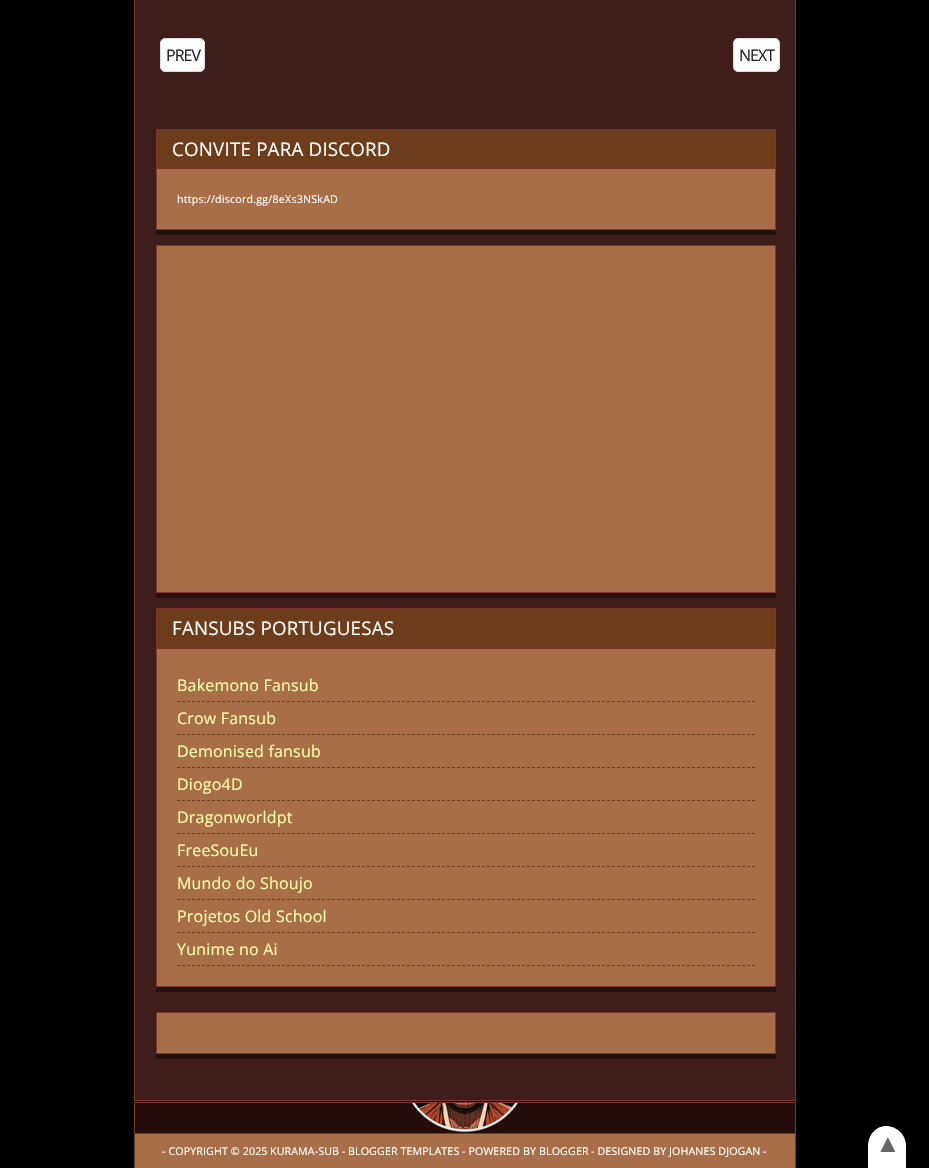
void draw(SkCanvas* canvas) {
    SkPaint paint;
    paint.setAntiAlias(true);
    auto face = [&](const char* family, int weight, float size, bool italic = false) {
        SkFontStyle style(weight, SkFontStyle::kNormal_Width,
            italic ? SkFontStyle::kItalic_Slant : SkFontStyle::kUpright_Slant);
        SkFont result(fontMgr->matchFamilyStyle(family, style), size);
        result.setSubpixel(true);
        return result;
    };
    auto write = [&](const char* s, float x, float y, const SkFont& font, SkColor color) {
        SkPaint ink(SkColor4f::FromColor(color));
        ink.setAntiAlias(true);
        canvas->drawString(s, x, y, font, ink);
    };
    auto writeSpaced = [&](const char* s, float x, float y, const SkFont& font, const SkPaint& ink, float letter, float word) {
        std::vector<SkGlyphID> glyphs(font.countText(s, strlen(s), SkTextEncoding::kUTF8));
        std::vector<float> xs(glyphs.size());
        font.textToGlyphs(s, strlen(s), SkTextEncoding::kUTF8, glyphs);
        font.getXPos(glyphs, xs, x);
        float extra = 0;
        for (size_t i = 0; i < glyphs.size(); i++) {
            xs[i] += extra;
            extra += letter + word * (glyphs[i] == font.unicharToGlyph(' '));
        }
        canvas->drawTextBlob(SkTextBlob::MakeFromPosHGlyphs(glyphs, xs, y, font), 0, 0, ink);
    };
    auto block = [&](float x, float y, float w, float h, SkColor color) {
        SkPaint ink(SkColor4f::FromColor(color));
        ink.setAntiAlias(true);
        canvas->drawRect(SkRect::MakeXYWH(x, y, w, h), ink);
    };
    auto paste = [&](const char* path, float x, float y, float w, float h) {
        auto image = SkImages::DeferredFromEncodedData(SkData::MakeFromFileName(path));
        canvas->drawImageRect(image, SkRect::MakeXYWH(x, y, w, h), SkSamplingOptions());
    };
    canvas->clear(SK_ColorBLACK);
    block(135, 0, 660, 1100, SkColorSetRGB(62, 29, 26));
    block(795, 0, 1, 1101, SkColorSetRGB(128, 53, 48));
    block(134, 1100, 662, 1, SkColorSetRGB(128, 53, 48));
    block(134, 0, 1, 1101, SkColorSetRGB(128, 53, 48));
    paint.setColor(SK_ColorWHITE);
    canvas->drawRoundRect(SkRect::MakeXYWH(160.5f, 38.5f, 44, 33), 4.5f, 4.5f, paint);
    paint.setStyle(SkPaint::kStroke_Style);
    paint.setStrokeWidth(1);
    paint.setColor(SkColorSetRGB(221, 221, 221));
    canvas->drawRoundRect(SkRect::MakeXYWH(160.5f, 38.5f, 44, 33), 4.5f, 4.5f, paint);
    auto kFont1 = face("Open Sans", 400, 16);
    paint.setStyle(SkPaint::kFill_Style);
    paint.setColor(SkColorSetRGB(34, 34, 34));
    writeSpaced("PREV", 166, 61, kFont1, paint, -1, 0);
    paint.setColor(SK_ColorWHITE);
    canvas->drawRoundRect(SkRect::MakeXYWH(733.5f, 38.5f, 46, 33), 4.5f, 4.5f, paint);
    paint.setStyle(SkPaint::kStroke_Style);
    paint.setColor(SkColorSetRGB(221, 221, 221));
    canvas->drawRoundRect(SkRect::MakeXYWH(733.5f, 38.5f, 46, 33), 4.5f, 4.5f, paint);
    paint.setStyle(SkPaint::kFill_Style);
    paint.setColor(SkColorSetRGB(34, 34, 34));
    writeSpaced("NEXT", 739, 61, kFont1, paint, -1, 0);
    paint.setColor(SkColorSetRGB(109, 61, 27));
    canvas->drawRect(SkRect::MakeXYWH(156.5f, 129.5f, 619, 38), paint);
    paint.setStyle(SkPaint::kStroke_Style);
    paint.setColor(SkColorSetRGB(128, 53, 48));
    canvas->drawRect(SkRect::MakeXYWH(156.5f, 129.5f, 619, 38), paint);
    auto kFont2 = face("Open Sans", 400, 18.75f);
    paint.setStyle(SkPaint::kFill_Style);
    paint.setColor(SK_ColorWHITE);
    writeSpaced("CONVITE PARA DISCORD", 172, 156, kFont2, paint, 0.2f, 0);
    block(156, 230, 620, 5, SkColorSetRGB(37, 17, 16));
    paint.setColor(SkColorSetRGB(168, 110, 72));
    canvas->drawRect(SkRect::MakeXYWH(156.5f, 168.5f, 619, 61), paint);
    paint.setStyle(SkPaint::kStroke_Style);
    paint.setColor(SkColorSetRGB(128, 53, 48));
    canvas->drawRect(SkRect::MakeXYWH(156.5f, 168.5f, 619, 61), paint);
    auto kFont3 = face("Open Sans", 400, 10.7f);
    paint.setStyle(SkPaint::kFill_Style);
    paint.setColor(SK_ColorWHITE);
    writeSpaced("https://discord.gg/8eXs3NSkAD", 177, 203, kFont3, paint, 0.2f, 0);
    block(156, 593, 620, 5, SkColorSetRGB(37, 17, 16));
    paint.setColor(SkColorSetRGB(168, 110, 72));
    canvas->drawRect(SkRect::MakeXYWH(156.5f, 245.5f, 619, 347), paint);
    paint.setStyle(SkPaint::kStroke_Style);
    paint.setColor(SkColorSetRGB(128, 53, 48));
    canvas->drawRect(SkRect::MakeXYWH(156.5f, 245.5f, 619, 347), paint);
    paint.setStyle(SkPaint::kFill_Style);
    paint.setColor(SkColorSetRGB(109, 61, 27));
    canvas->drawRect(SkRect::MakeXYWH(156.5f, 608.5f, 619, 39), paint);
    paint.setStyle(SkPaint::kStroke_Style);
    paint.setColor(SkColorSetRGB(128, 53, 48));
    canvas->drawRect(SkRect::MakeXYWH(156.5f, 608.5f, 619, 39), paint);
    paint.setStyle(SkPaint::kFill_Style);
    paint.setColor(SK_ColorWHITE);
    writeSpaced("FANSUBS PORTUGUESAS", 172, 635, kFont2, paint, 0.2f, 0);
    block(156, 987, 620, 5, SkColorSetRGB(37, 17, 16));
    paint.setColor(SkColorSetRGB(168, 110, 72));
    canvas->drawRect(SkRect::MakeXYWH(156.5f, 648.5f, 619, 338), paint);
    paint.setStyle(SkPaint::kStroke_Style);
    paint.setColor(SkColorSetRGB(128, 53, 48));
    canvas->drawRect(SkRect::MakeXYWH(156.5f, 648.5f, 619, 338), paint);
    paint.setColor(SkColorSetRGB(109, 61, 27));
    paint.setPathEffect(SkDashPathEffect::Make({{3, 2}}, 0));
    canvas->drawPath(SkPathBuilder().moveTo(177, 701.5f).lineTo(755, 701.5f).detach(), paint);
    paint.setPathEffect(nullptr);
    paint.setStyle(SkPaint::kFill_Style);
    paint.setColor(SkColorSetRGB(255, 255, 170));
    writeSpaced("Bakemono Fansub", 177, 691, kFont1, paint, 0.2f, 0);
    paint.setStyle(SkPaint::kStroke_Style);
    paint.setColor(SkColorSetRGB(109, 61, 27));
    paint.setPathEffect(SkDashPathEffect::Make({{3, 2}}, 0));
    canvas->drawPath(SkPathBuilder().moveTo(177, 734.5f).lineTo(755, 734.5f).detach(), paint);
    paint.setPathEffect(nullptr);
    paint.setStyle(SkPaint::kFill_Style);
    paint.setColor(SkColorSetRGB(255, 255, 170));
    writeSpaced("Crow Fansub", 177, 724, kFont1, paint, 0.2f, 0);
    paint.setStyle(SkPaint::kStroke_Style);
    paint.setColor(SkColorSetRGB(109, 61, 27));
    paint.setPathEffect(SkDashPathEffect::Make({{3, 2}}, 0));
    canvas->drawPath(SkPathBuilder().moveTo(177, 767.5f).lineTo(755, 767.5f).detach(), paint);
    paint.setPathEffect(nullptr);
    paint.setStyle(SkPaint::kFill_Style);
    paint.setColor(SkColorSetRGB(255, 255, 170));
    writeSpaced("Demonised fansub", 177, 757, kFont1, paint, 0.2f, 0);
    paint.setStyle(SkPaint::kStroke_Style);
    paint.setColor(SkColorSetRGB(109, 61, 27));
    paint.setPathEffect(SkDashPathEffect::Make({{3, 2}}, 0));
    canvas->drawPath(SkPathBuilder().moveTo(177, 800.5f).lineTo(755, 800.5f).detach(), paint);
    paint.setPathEffect(nullptr);
    paint.setStyle(SkPaint::kFill_Style);
    paint.setColor(SkColorSetRGB(255, 255, 170));
    writeSpaced("Diogo4D", 177, 790, kFont1, paint, 0.2f, 0);
    paint.setStyle(SkPaint::kStroke_Style);
    paint.setColor(SkColorSetRGB(109, 61, 27));
    paint.setPathEffect(SkDashPathEffect::Make({{3, 2}}, 0));
    canvas->drawPath(SkPathBuilder().moveTo(177, 833.5f).lineTo(755, 833.5f).detach(), paint);
    paint.setPathEffect(nullptr);
    paint.setStyle(SkPaint::kFill_Style);
    paint.setColor(SkColorSetRGB(255, 255, 170));
    writeSpaced("Dragonworldpt", 177, 823, kFont1, paint, 0.2f, 0);
    paint.setStyle(SkPaint::kStroke_Style);
    paint.setColor(SkColorSetRGB(109, 61, 27));
    paint.setPathEffect(SkDashPathEffect::Make({{3, 2}}, 0));
    canvas->drawPath(SkPathBuilder().moveTo(177, 866.5f).lineTo(755, 866.5f).detach(), paint);
    paint.setPathEffect(nullptr);
    paint.setStyle(SkPaint::kFill_Style);
    paint.setColor(SkColorSetRGB(255, 255, 170));
    writeSpaced("FreeSouEu", 177, 856, kFont1, paint, 0.2f, 0);
    paint.setStyle(SkPaint::kStroke_Style);
    paint.setColor(SkColorSetRGB(109, 61, 27));
    paint.setPathEffect(SkDashPathEffect::Make({{3, 2}}, 0));
    canvas->drawPath(SkPathBuilder().moveTo(177, 899.5f).lineTo(755, 899.5f).detach(), paint);
    paint.setPathEffect(nullptr);
    paint.setStyle(SkPaint::kFill_Style);
    paint.setColor(SkColorSetRGB(255, 255, 170));
    writeSpaced("Mundo do Shoujo", 177, 889, kFont1, paint, 0.2f, 0);
    paint.setStyle(SkPaint::kStroke_Style);
    paint.setColor(SkColorSetRGB(109, 61, 27));
    paint.setPathEffect(SkDashPathEffect::Make({{3, 2}}, 0));
    canvas->drawPath(SkPathBuilder().moveTo(177, 932.5f).lineTo(755, 932.5f).detach(), paint);
    paint.setPathEffect(nullptr);
    paint.setStyle(SkPaint::kFill_Style);
    paint.setColor(SkColorSetRGB(255, 255, 170));
    writeSpaced("Projetos Old School", 177, 922, kFont1, paint, 0.2f, 0);
    paint.setStyle(SkPaint::kStroke_Style);
    paint.setColor(SkColorSetRGB(109, 61, 27));
    paint.setPathEffect(SkDashPathEffect::Make({{3, 2}}, 0));
    canvas->drawPath(SkPathBuilder().moveTo(177, 965.5f).lineTo(755, 965.5f).detach(), paint);
    paint.setPathEffect(nullptr);
    paint.setStyle(SkPaint::kFill_Style);
    paint.setColor(SkColorSetRGB(255, 255, 170));
    writeSpaced("Yunime no Ai", 177, 955, kFont1, paint, 0.2f, 0);
    block(156, 1054, 620, 5, SkColorSetRGB(37, 17, 16));
    paint.setColor(SkColorSetRGB(168, 110, 72));
    canvas->drawRect(SkRect::MakeXYWH(156.5f, 1012.5f, 619, 41), paint);
    paint.setStyle(SkPaint::kStroke_Style);
    paint.setColor(SkColorSetRGB(128, 53, 48));
    canvas->drawRect(SkRect::MakeXYWH(156.5f, 1012.5f, 619, 41), paint);
    block(135, 1103, 660, 30, SkColorSetRGB(37, 13, 11));
    paste("pic1.png", 410, 1103, 110, 30);
    canvas->drawRect(SkRect::MakeXYWH(134.5f, 1102.5f, 661, 31), paint);
    block(135, 1134, 660, 34, SkColorSetRGB(168, 110, 72));
    paint.setColor(SkColorSetRGB(109, 61, 27));
    canvas->drawRect(SkRect::MakeXYWH(134.5f, 1133.5f, 661, 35), paint);
    paint.setStyle(SkPaint::kFill_Style);
    paint.setColor(SK_ColorWHITE);
    writeSpaced("- COPYRIGHT © 2025", 162, 1155, kFont3, paint, 0.1f, 0);
    writeSpaced("KURAMA-SUB", 270, 1155, kFont3, paint, 0.1f, 0);
    writeSpaced("-", 342, 1155, kFont3, paint, 0.1f, 0);
    writeSpaced("BLOGGER TEMPLATES", 348, 1155, kFont3, paint, 0.1f, 0);
    writeSpaced("- POWERED BY", 462, 1155, kFont3, paint, 0.1f, 0);
    writeSpaced("BLOGGER", 539, 1155, kFont3, paint, 0.1f, 0);
    writeSpaced("- DESIGNED BY", 591, 1155, kFont3, paint, 0.1f, 0);
    writeSpaced("JOHANES DJOGAN", 669, 1155, kFont3, paint, 0.1f, 0);
    writeSpaced("-", 763, 1155, kFont3, paint, 0.1f, 0);
    canvas->drawPath(SkPathBuilder().moveTo(868, 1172).lineTo(868, 1146).cubicTo(868, 1135, 876, 1126, 886, 1126).cubicTo(897, 1126, 906, 1135, 906, 1146).lineTo(906, 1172).cubicTo(906, 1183, 897, 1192, 886, 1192).cubicTo(876, 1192, 868, 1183, 868, 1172).close().detach(), paint);
    auto kFont4 = face("Liberation Sans", 400, 25);
    canvas->save();
    canvas->rotate(-90, 895, 1157);
    write("►", 895, 1157, kFont4, SkColorSetRGB(102, 102, 102));
    canvas->restore();
}
